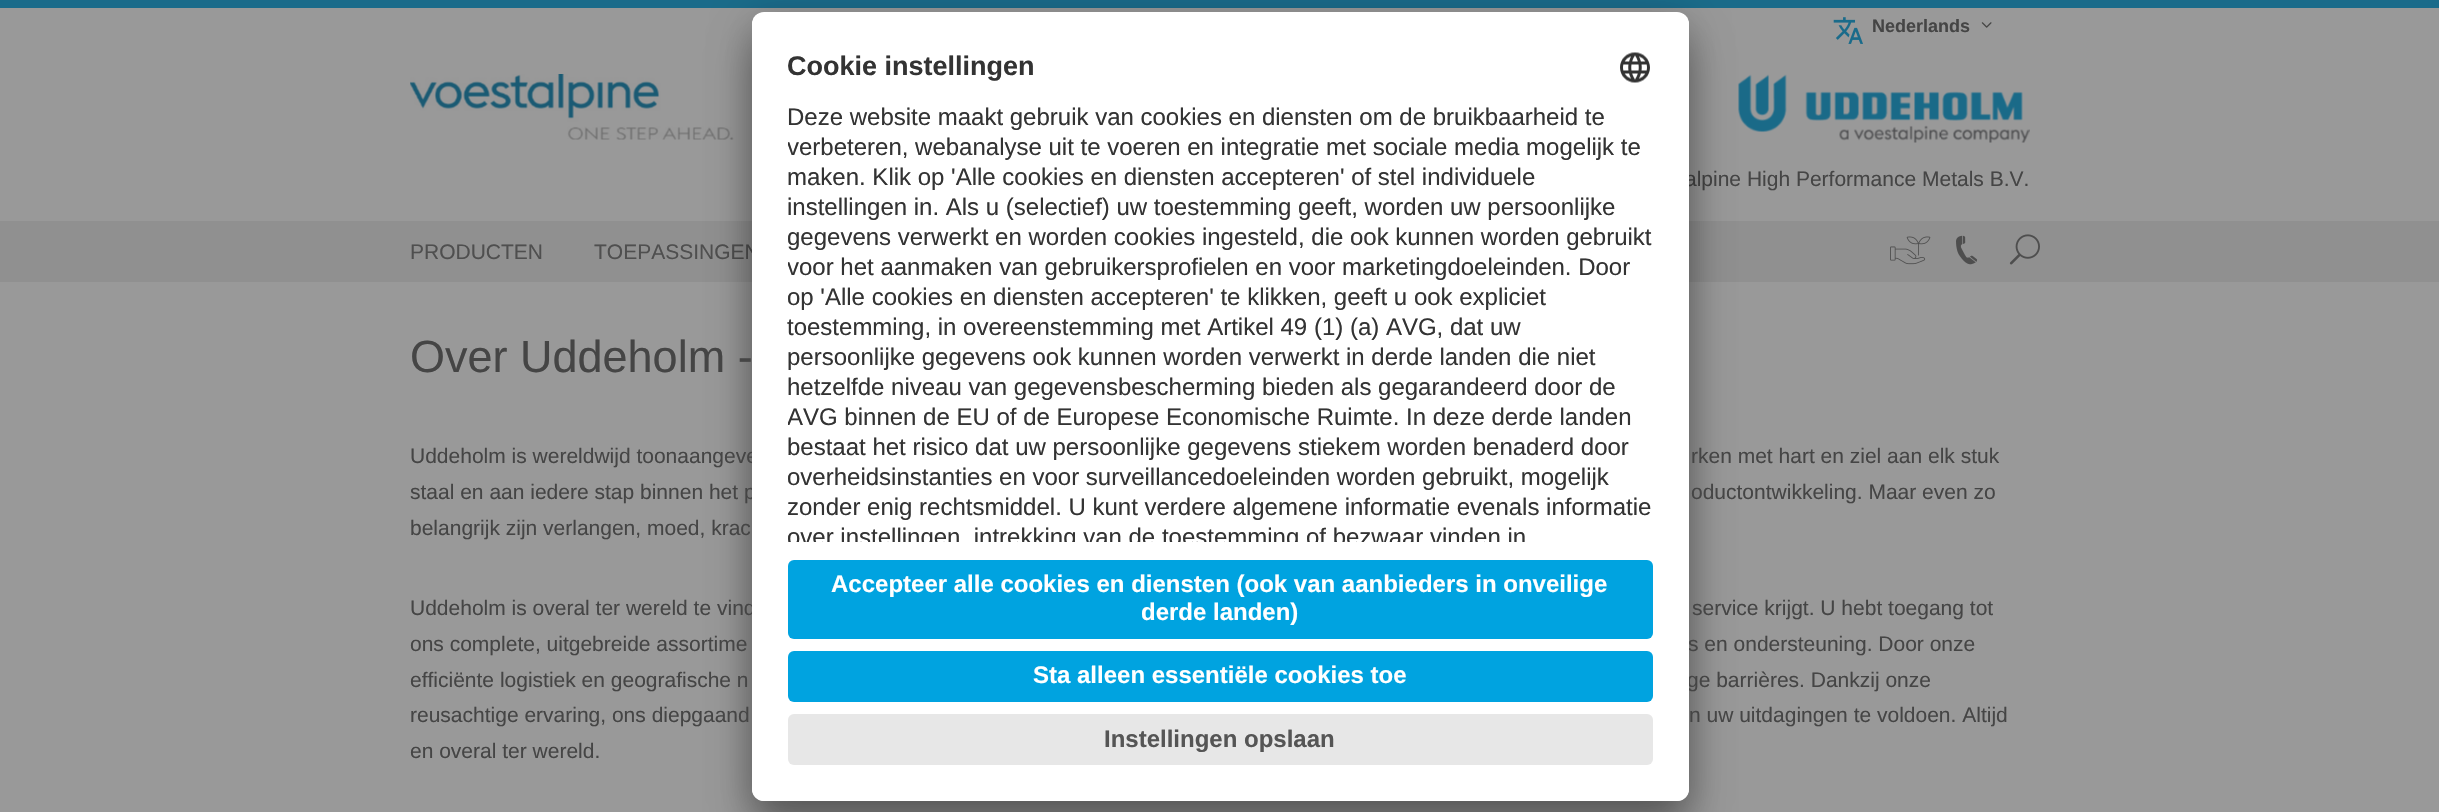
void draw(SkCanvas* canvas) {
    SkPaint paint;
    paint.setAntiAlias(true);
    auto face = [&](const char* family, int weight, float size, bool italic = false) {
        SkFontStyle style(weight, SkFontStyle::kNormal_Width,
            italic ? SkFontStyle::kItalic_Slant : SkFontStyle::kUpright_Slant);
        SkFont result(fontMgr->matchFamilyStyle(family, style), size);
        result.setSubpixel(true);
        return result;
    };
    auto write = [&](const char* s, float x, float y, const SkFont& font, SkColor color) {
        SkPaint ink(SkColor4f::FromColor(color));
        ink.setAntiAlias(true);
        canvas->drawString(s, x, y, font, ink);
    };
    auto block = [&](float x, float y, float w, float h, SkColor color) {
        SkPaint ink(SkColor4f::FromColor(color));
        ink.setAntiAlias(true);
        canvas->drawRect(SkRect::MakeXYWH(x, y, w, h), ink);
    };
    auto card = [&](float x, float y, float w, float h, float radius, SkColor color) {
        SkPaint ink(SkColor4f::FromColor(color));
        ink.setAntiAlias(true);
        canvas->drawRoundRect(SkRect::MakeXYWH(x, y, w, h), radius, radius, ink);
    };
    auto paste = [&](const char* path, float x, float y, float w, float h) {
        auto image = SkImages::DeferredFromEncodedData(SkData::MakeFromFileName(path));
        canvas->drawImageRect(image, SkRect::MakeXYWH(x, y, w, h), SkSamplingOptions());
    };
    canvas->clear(SkColorSetRGB(153, 153, 153));
    block(0, 0, 2439, 8, SkColorSetRGB(26, 107, 138));
    paste("pic1.png", 1833, 17, 30, 27);
    auto kFont1 = face("Liberation Sans", 700, 18);
    write("Nederlands", 1872, 32, kFont1, SkColorSetRGB(69, 69, 69));
    paste("pic2.png", 1981, 22, 11, 6);
    paste("pic3.png", 410, 74, 324, 66);
    paste("pic4.png", 1738, 74, 292, 69);
    auto kFont2 = face("Liberation Sans", 400, 21);
    write("alpine High Performance Metals B.V.", 1685, 186, kFont2, SkColorSetRGB(69, 69, 69));
    block(0, 221, 2439, 61, SkColorSetRGB(144, 144, 144));
    write("PRODUCTEN", 410, 259, kFont2, SkColorSetRGB(79, 79, 79));
    write("TOEPASSINGEN", 594, 259, kFont2, SkColorSetRGB(79, 79, 79));
    paste("pic5.png", 1890, 236, 41, 29);
    paste("pic6.png", 1956, 235, 22, 30);
    paste("pic7.png", 2009, 234, 31, 31);
    paint.setColor(SkColorSetARGB(77, 0, 0, 0));
    paint.setMaskFilter(SkMaskFilter::MakeBlur(kNormal_SkBlurStyle, 21));
    canvas->drawRoundRect(SkRect::MakeXYWH(752, 42, 937, 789), 12, 12, paint);
    paint.setMaskFilter(nullptr);
    paint.setColor(SkColorSetARGB(56, 0, 0, 0));
    paint.setMaskFilter(SkMaskFilter::MakeBlur(kNormal_SkBlurStyle, 19.5f));
    canvas->drawRoundRect(SkRect::MakeXYWH(752, 20, 937, 789), 12, 12, paint);
    paint.setMaskFilter(nullptr);
    write("Uddeholm is wereldwijd toonaangeve", 410, 463, kFont2, SkColorSetRGB(69, 69, 69));
    write("staal en aan iedere stap binnen het p", 410, 499, kFont2, SkColorSetRGB(69, 69, 69));
    write("Uddeholm is overal ter wereld te vind", 410, 615, kFont2, SkColorSetRGB(69, 69, 69));
    write("s en ondersteuning. Door onze", 1688, 651, kFont2, SkColorSetRGB(69, 69, 69));
    write("ge barrières. Dankzij onze", 1687, 687, kFont2, SkColorSetRGB(69, 69, 69));
    card(752, 12, 937, 789, 12, SK_ColorWHITE);
    canvas->save();
    canvas->clipPath(SkPathBuilder().moveTo(764, 12).lineTo(1677, 12).cubicTo(1683.5f, 12, 1689, 17.5f, 1689, 24).lineTo(1689, 789).cubicTo(1689, 795.5f, 1683.5f, 801, 1677, 801).lineTo(764, 801).cubicTo(757.5f, 801, 752, 795.5f, 752, 789).lineTo(752, 24).cubicTo(752, 17.5f, 757.5f, 12, 764, 12).close().detach(), true);
    canvas->clipPath(SkPathBuilder().moveTo(764, 12).lineTo(1677, 12).cubicTo(1683.5f, 12, 1689, 17.5f, 1689, 24).lineTo(1689, 542).lineTo(752, 542).lineTo(752, 24).cubicTo(752, 17.5f, 757.5f, 12, 764, 12).close().detach(), true);
    block(752, 14, 937, 528, SK_ColorWHITE);
    canvas->restore();
    auto kFont3 = face("Liberation Sans", 700, 27);
    write("Cookie instellingen", 787, 75, kFont3, SkColorSetRGB(51, 51, 51));
    paste("pic8.png", 1620, 52, 30, 31);
    auto kFont4 = face("Liberation Sans", 400, 24);
    write("Deze website maakt gebruik van cookies en diensten om de bruikbaarheid te", 787, 125, kFont4, SkColorSetRGB(51, 51, 51));
    canvas->save();
    canvas->clipRect(SkRect::MakeXYWH(788, 98, 865, 444));
    write("verbeteren, webanalyse uit te voeren en integratie met sociale media mogelijk te", 787, 155, kFont4, SkColorSetRGB(51, 51, 51));
    canvas->restore();
    write("maken. Klik op 'Alle cookies en diensten accepteren' of stel individuele", 787, 185, kFont4, SkColorSetRGB(51, 51, 51));
    write("instellingen in. Als u (selectief) uw toestemming geeft, worden uw persoonlijke", 787, 215, kFont4, SkColorSetRGB(51, 51, 51));
    canvas->save();
    canvas->clipRect(SkRect::MakeXYWH(788, 98, 865, 444));
    write("gegevens verwerkt en worden cookies ingesteld, die ook kunnen worden gebruikt", 787, 245, kFont4, SkColorSetRGB(51, 51, 51));
    write("voor het aanmaken van gebruikersprofielen en voor marketingdoeleinden. Door", 787, 275, kFont4, SkColorSetRGB(51, 51, 51));
    write("op 'Alle cookies en diensten accepteren' te klikken, geeft u ook expliciet", 787, 305, kFont4, SkColorSetRGB(51, 51, 51));
    canvas->restore();
    write("toestemming, in overeenstemming met Artikel 49 (1) (a) AVG, dat uw", 787, 335, kFont4, SkColorSetRGB(51, 51, 51));
    write("persoonlijke gegevens ook kunnen worden verwerkt in derde landen die niet", 787, 365, kFont4, SkColorSetRGB(51, 51, 51));
    write("hetzelfde niveau van gegevensbescherming bieden als gegarandeerd door de", 787, 395, kFont4, SkColorSetRGB(51, 51, 51));
    canvas->save();
    canvas->clipRect(SkRect::MakeXYWH(788, 98, 865, 444));
    write("AVG binnen de EU of de Europese Economische Ruimte. In deze derde landen", 787, 425, kFont4, SkColorSetRGB(51, 51, 51));
    canvas->restore();
    write("bestaat het risico dat uw persoonlijke gegevens stiekem worden benaderd door", 787, 455, kFont4, SkColorSetRGB(51, 51, 51));
    canvas->save();
    canvas->clipRect(SkRect::MakeXYWH(788, 98, 865, 444));
    write("overheidsinstanties en voor surveillancedoeleinden worden gebruikt, mogelijk", 787, 485, kFont4, SkColorSetRGB(51, 51, 51));
    canvas->restore();
    write("zonder enig rechtsmiddel. U kunt verdere algemene informatie evenals informatie", 787, 515, kFont4, SkColorSetRGB(51, 51, 51));
    canvas->save();
    canvas->clipRect(SkRect::MakeXYWH(788, 98, 865, 444));
    write("over instellingen, intrekking van de toestemming of bezwaar vinden in", 787, 545, kFont4, SkColorSetRGB(51, 51, 51));
    canvas->restore();
    paint.setColor(SK_ColorWHITE);
    canvas->drawPath(SkPathBuilder().moveTo(752, 542).lineTo(1689, 542).lineTo(1689, 789).cubicTo(1689, 795.5f, 1683.5f, 801, 1677, 801).lineTo(764, 801).cubicTo(757.5f, 801, 752, 795.5f, 752, 789).close().detach(), paint);
    card(788, 560, 865, 79, 6, SkColorSetRGB(0, 163, 224));
    auto kFont5 = face("Liberation Sans", 700, 24);
    write("Accepteer alle cookies en diensten (ook van aanbieders in onveilige", 831, 592, kFont5, SK_ColorWHITE);
    write("derde landen)", 1141, 620, kFont5, SK_ColorWHITE);
    card(788, 651, 865, 51, 6, SkColorSetRGB(0, 163, 224));
    write("Sta alleen essentiële cookies toe", 1033, 683, kFont5, SK_ColorWHITE);
    card(788, 714, 865, 51, 6, SkColorSetRGB(231, 231, 231));
    write("Instellingen opslaan", 1104, 747, kFont5, SkColorSetRGB(85, 85, 85));
    auto kFont6 = face("Liberation Sans", 400, 45);
    write("Over Uddeholm -", 410, 372, kFont6, SkColorSetRGB(69, 69, 69));
    write("rken met hart en ziel aan elk stuk", 1691, 463, kFont2, SkColorSetRGB(69, 69, 69));
    write("oductontwikkeling. Maar even zo", 1691, 499, kFont2, SkColorSetRGB(69, 69, 69));
    write("belangrijk zijn verlangen, moed, krac", 410, 535, kFont2, SkColorSetRGB(69, 69, 69));
    write("service krijgt. U hebt toegang tot", 1692, 615, kFont2, SkColorSetRGB(69, 69, 69));
    write("ons complete, uitgebreide assortime", 410, 651, kFont2, SkColorSetRGB(69, 69, 69));
    write("efficiënte logistiek en geografische n", 410, 687, kFont2, SkColorSetRGB(69, 69, 69));
    write("reusachtige ervaring, ons diepgaand", 410, 722, kFont2, SkColorSetRGB(69, 69, 69));
    write("n uw uitdagingen te voldoen. Altijd", 1689, 722, kFont2, SkColorSetRGB(69, 69, 69));
    write("en overal ter wereld.", 410, 758, kFont2, SkColorSetRGB(69, 69, 69));
}
